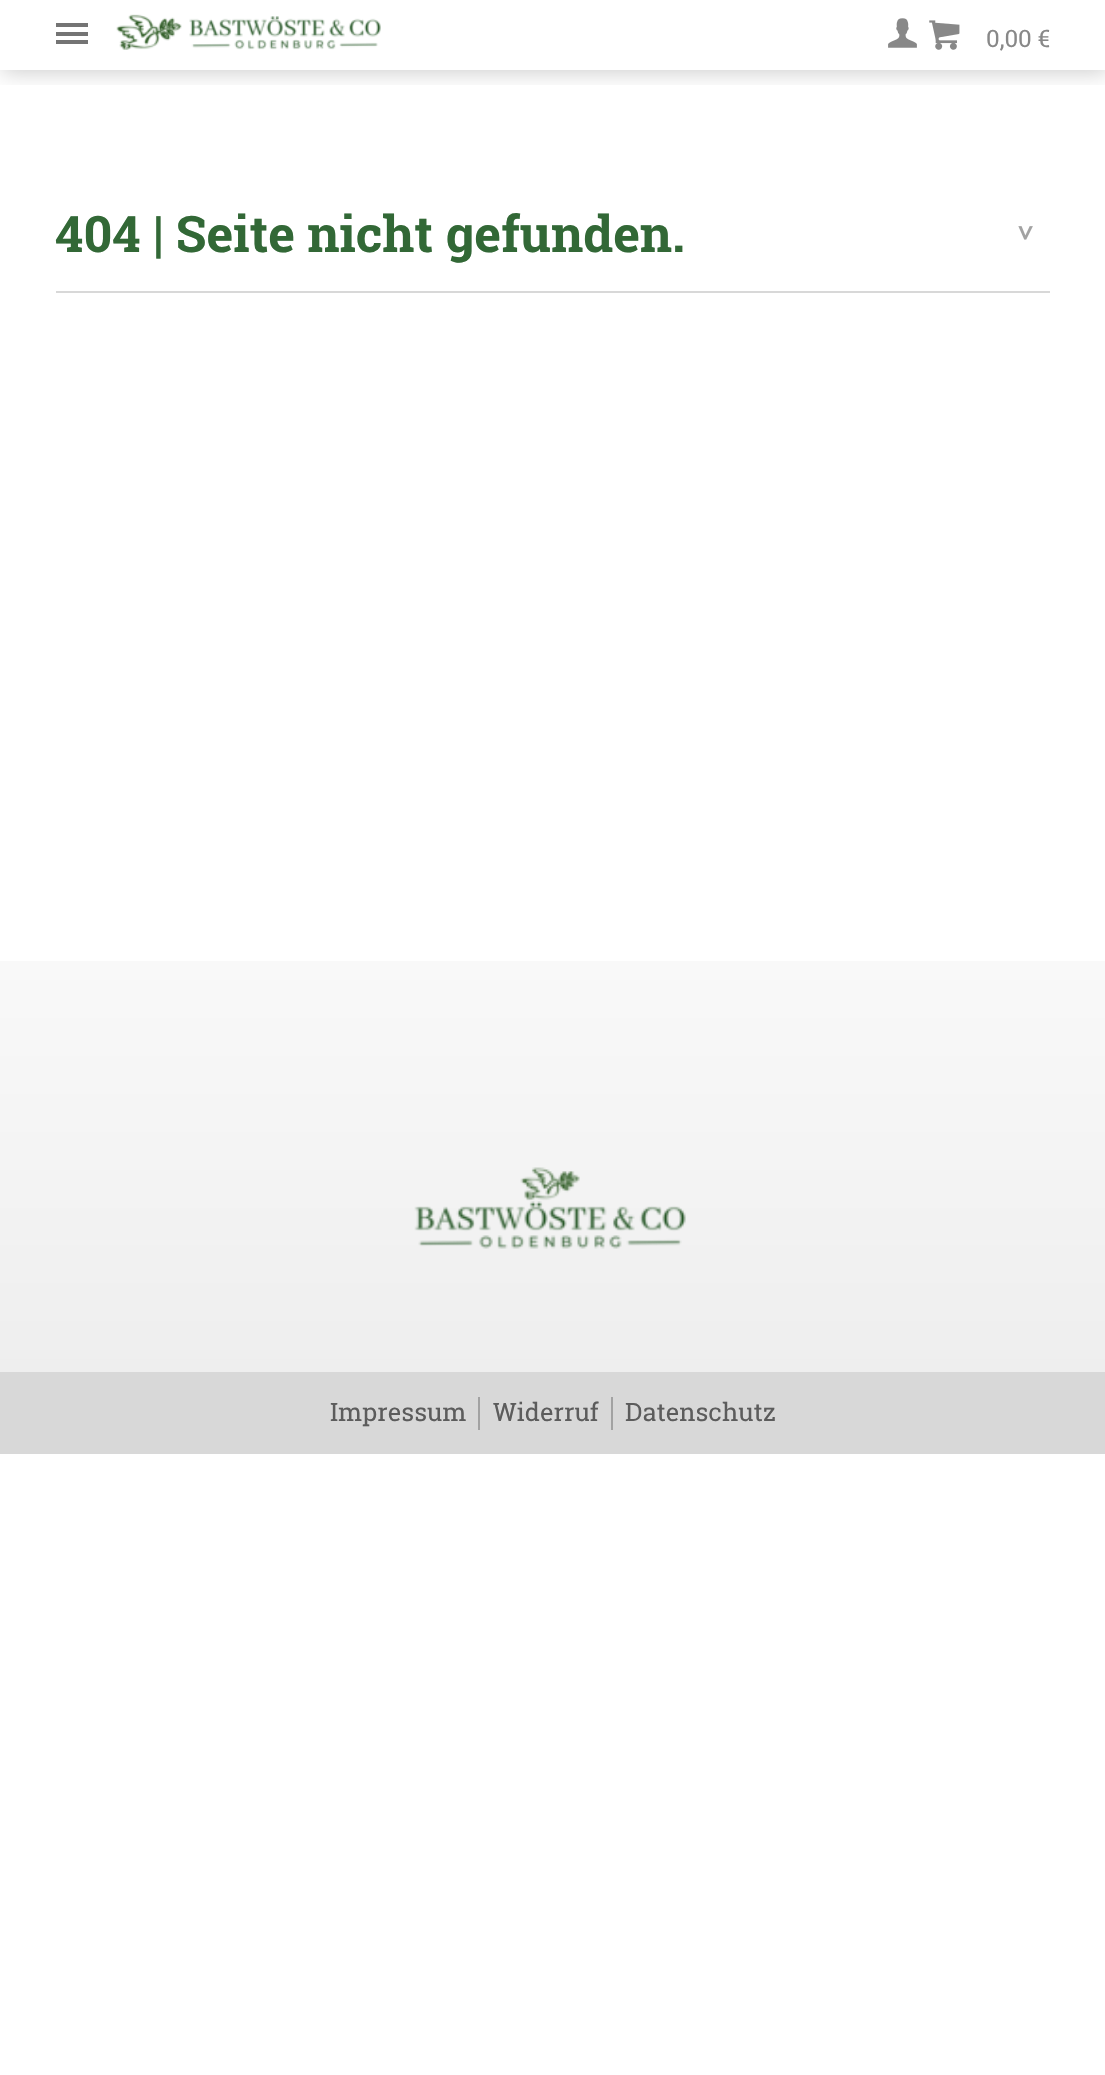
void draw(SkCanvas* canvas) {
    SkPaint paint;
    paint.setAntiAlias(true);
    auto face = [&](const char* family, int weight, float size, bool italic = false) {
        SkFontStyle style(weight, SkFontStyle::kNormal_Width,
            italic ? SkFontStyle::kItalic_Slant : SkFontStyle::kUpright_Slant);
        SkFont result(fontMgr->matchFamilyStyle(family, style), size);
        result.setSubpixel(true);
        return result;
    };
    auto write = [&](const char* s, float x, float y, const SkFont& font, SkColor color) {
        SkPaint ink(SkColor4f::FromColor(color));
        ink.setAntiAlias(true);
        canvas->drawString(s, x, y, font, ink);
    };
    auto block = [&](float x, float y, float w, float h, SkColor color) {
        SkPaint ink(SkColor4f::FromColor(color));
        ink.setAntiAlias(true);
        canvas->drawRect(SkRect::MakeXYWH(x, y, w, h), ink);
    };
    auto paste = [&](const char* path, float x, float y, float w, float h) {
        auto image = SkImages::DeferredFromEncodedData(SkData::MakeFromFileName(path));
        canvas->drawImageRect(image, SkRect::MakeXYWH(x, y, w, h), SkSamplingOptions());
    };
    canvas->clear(SK_ColorWHITE);
    canvas->save();
    canvas->clipRect(SkRect::MakeXYWH(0, 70, 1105, 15));
    paint.setColor(SkColorSetARGB(51, 0, 0, 0));
    paint.setMaskFilter(SkMaskFilter::MakeBlur(kNormal_SkBlurStyle, 10.5f));
    canvas->drawRect(SkRect::MakeXYWH(2, 2, 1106, 70), paint);
    paint.setMaskFilter(nullptr);
    canvas->restore();
    block(56, 23, 32, 4, SkColorSetRGB(116, 116, 116));
    block(56, 32, 32, 4, SkColorSetRGB(116, 116, 116));
    block(56, 40, 32, 4, SkColorSetRGB(116, 116, 116));
    paste("pic1.png", 116, 14, 265, 36);
    paste("pic2.png", 888, 18, 29, 30);
    paste("pic3.png", 929, 20, 31, 30);
    auto kFont1 = face("Roboto Slab", 400, 24);
    write("0,00 €", 986, 47, kFont1, SkColorSetRGB(136, 136, 136));
    block(56, 291, 994, 2, SkColorSetRGB(216, 216, 216));
    auto kFont2 = face("Roboto Slab", 700, 50.4f);
    write("404 | Seite nicht gefunden.", 55, 252, kFont2, SkColorSetRGB(50, 104, 54));
    paste("pic4.png", 1018, 226, 15, 14);
    {
        const SkColor colors[] = {SkColorSetRGB(249, 249, 249), SkColorSetRGB(236, 236, 236)};
        const float stops[] = {0, 1};
        const SkPoint ends[] = {{553, 961}, {553, 1454}};
        paint.setShader(SkGradientShader::MakeLinear(ends, colors, stops, 2, SkTileMode::kClamp));
        paint.setAlpha(255);
    }
    canvas->drawRect(SkRect::MakeXYWH(0, 961, 1105, 411), paint);
    paste("pic5.png", 414, 1167, 272, 82);
    block(0, 1372, 1105, 82, SkColorSetRGB(216, 216, 216));
    auto kFont3 = face("Roboto Slab", 400, 25.25f);
    write("Impressum", 330, 1421, kFont3, SkColorSetRGB(92, 92, 92));
    block(478, 1397, 2, 33, SkColorSetRGB(162, 162, 162));
    write("Widerruf", 493, 1421, kFont3, SkColorSetRGB(92, 92, 92));
    block(611, 1397, 2, 33, SkColorSetRGB(162, 162, 162));
    write("Datenschutz", 625, 1421, kFont3, SkColorSetRGB(92, 92, 92));
}
